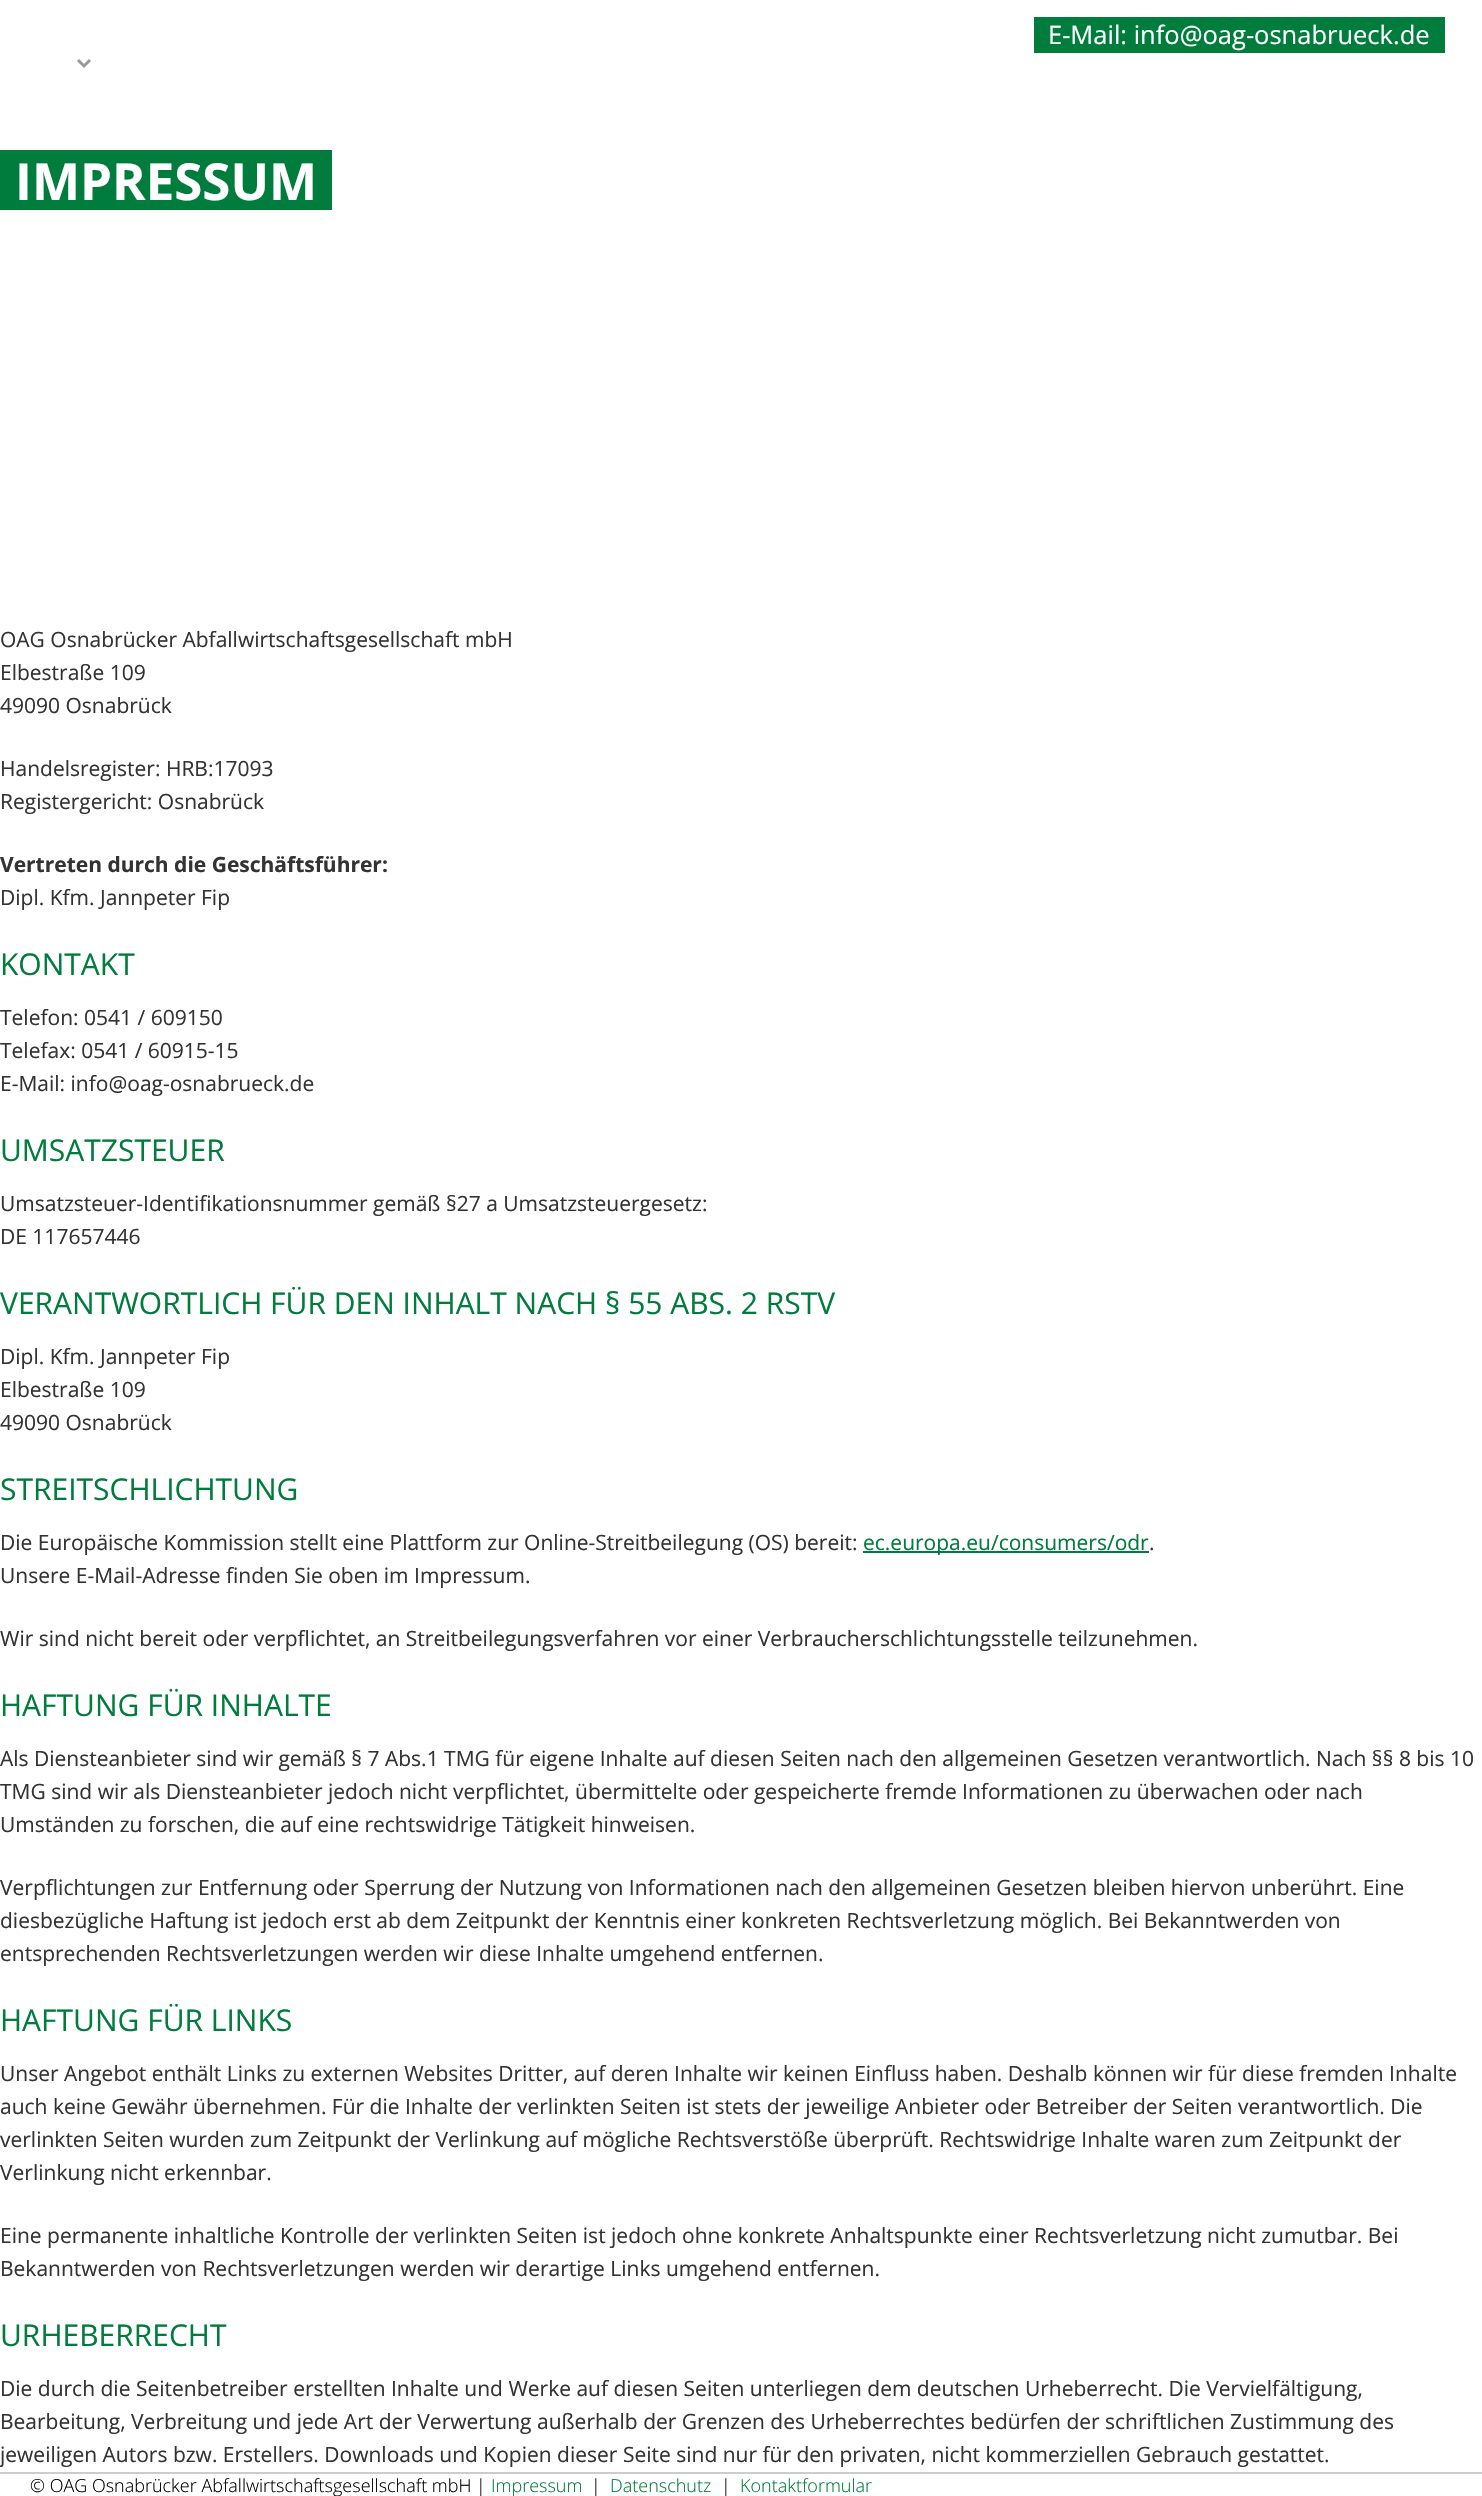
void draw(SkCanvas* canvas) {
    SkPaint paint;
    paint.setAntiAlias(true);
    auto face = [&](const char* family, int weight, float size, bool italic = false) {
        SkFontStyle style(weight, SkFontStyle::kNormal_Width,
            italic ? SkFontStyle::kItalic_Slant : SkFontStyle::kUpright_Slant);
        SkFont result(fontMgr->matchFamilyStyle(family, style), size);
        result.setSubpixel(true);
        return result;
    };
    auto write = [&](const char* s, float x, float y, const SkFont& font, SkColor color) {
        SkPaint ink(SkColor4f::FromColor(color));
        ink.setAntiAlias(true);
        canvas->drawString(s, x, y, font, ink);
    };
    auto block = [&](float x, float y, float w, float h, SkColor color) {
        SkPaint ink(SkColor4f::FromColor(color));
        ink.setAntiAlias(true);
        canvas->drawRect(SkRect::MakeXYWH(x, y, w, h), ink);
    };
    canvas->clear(SK_ColorWHITE);
    block(1034, 17, 411, 36, SkColorSetRGB(0, 124, 61));
    auto kFont1 = face("Open Sans", 400, 25.5f);
    write("E-Mail: info@oag-osnabrueck.de", 1048, 44, kFont1, SK_ColorWHITE);
    paint.setStyle(SkPaint::kStroke_Style);
    paint.setStrokeWidth(3);
    paint.setColor(SkColorSetRGB(153, 153, 153));
    canvas->drawPath(SkPathBuilder().moveTo(78, 60).lineTo(84, 66).lineTo(90, 60).detach(), paint);
    block(0, 150, 332, 60, SkColorSetRGB(0, 124, 61));
    auto kFont2 = face("Open Sans", 700, 51);
    write("IMPRESSUM", 15, 200, kFont2, SK_ColorWHITE);
    auto kFont3 = face("Open Sans", 400, 21);
    write("OAG Osnabrücker Abfallwirtschaftsgesellschaft mbH", 0, 647, kFont3, SkColorSetRGB(51, 51, 51));
    write("Elbestraße 109", 0, 680, kFont3, SkColorSetRGB(51, 51, 51));
    write("49090 Osnabrück", 0, 713, kFont3, SkColorSetRGB(51, 51, 51));
    write("Handelsregister: HRB:17093", 0, 776, kFont3, SkColorSetRGB(51, 51, 51));
    write("Registergericht: Osnabrück", 0, 809, kFont3, SkColorSetRGB(51, 51, 51));
    auto kFont4 = face("Open Sans", 700, 21);
    write("Vertreten durch die Geschäftsführer:", 0, 872, kFont4, SkColorSetRGB(51, 51, 51));
    write("Dipl. Kfm. Jannpeter Fip", 0, 905, kFont3, SkColorSetRGB(51, 51, 51));
    auto kFont5 = face("Open Sans", 400, 30);
    write("KONTAKT", 0, 975, kFont5, SkColorSetRGB(0, 124, 61));
    write("Telefon: 0541 / 609150", 0, 1025, kFont3, SkColorSetRGB(51, 51, 51));
    write("Telefax: 0541 / 60915-15", 0, 1058, kFont3, SkColorSetRGB(51, 51, 51));
    write("E-Mail: info@oag-osnabrueck.de", 0, 1091, kFont3, SkColorSetRGB(51, 51, 51));
    write("UMSATZSTEUER", 0, 1161, kFont5, SkColorSetRGB(0, 124, 61));
    write("Umsatzsteuer-Identifikationsnummer gemäß §27 a Umsatzsteuergesetz:", 0, 1211, kFont3, SkColorSetRGB(51, 51, 51));
    write("DE 117657446", 0, 1244, kFont3, SkColorSetRGB(51, 51, 51));
    write("VERANTWORTLICH FÜR DEN INHALT NACH § 55 ABS. 2 RSTV", 0, 1314, kFont5, SkColorSetRGB(0, 124, 61));
    write("Dipl. Kfm. Jannpeter Fip", 0, 1364, kFont3, SkColorSetRGB(51, 51, 51));
    write("Elbestraße 109", 0, 1397, kFont3, SkColorSetRGB(51, 51, 51));
    write("49090 Osnabrück", 0, 1430, kFont3, SkColorSetRGB(51, 51, 51));
    write("STREITSCHLICHTUNG", 0, 1500, kFont5, SkColorSetRGB(0, 124, 61));
    write("Die Europäische Kommission stellt eine Plattform zur Online-Streitbeilegung (OS) bereit:", 0, 1550, kFont3, SkColorSetRGB(51, 51, 51));
    block(863, 1551, 286, 2, SkColorSetRGB(0, 124, 61));
    write("ec.europa.eu/consumers/odr", 863, 1550, kFont3, SkColorSetRGB(0, 124, 61));
    write(".", 1149, 1550, kFont3, SkColorSetRGB(51, 51, 51));
    write("Unsere E-Mail-Adresse finden Sie oben im Impressum.", 0, 1583, kFont3, SkColorSetRGB(51, 51, 51));
    write("Wir sind nicht bereit oder verpflichtet, an Streitbeilegungsverfahren vor einer Verbraucherschlichtungsstelle teilzunehmen.", 0, 1646, kFont3, SkColorSetRGB(51, 51, 51));
    write("HAFTUNG FÜR INHALTE", 0, 1716, kFont5, SkColorSetRGB(0, 124, 61));
    write("Als Diensteanbieter sind wir gemäß § 7 Abs.1 TMG für eigene Inhalte auf diesen Seiten nach den allgemeinen Gesetzen verantwortlich. Nach §§ 8 bis 10", 0, 1766, kFont3, SkColorSetRGB(51, 51, 51));
    write("TMG sind wir als Diensteanbieter jedoch nicht verpflichtet, übermittelte oder gespeicherte fremde Informationen zu überwachen oder nach", 0, 1799, kFont3, SkColorSetRGB(51, 51, 51));
    write("Umständen zu forschen, die auf eine rechtswidrige Tätigkeit hinweisen.", 0, 1832, kFont3, SkColorSetRGB(51, 51, 51));
    write("Verpflichtungen zur Entfernung oder Sperrung der Nutzung von Informationen nach den allgemeinen Gesetzen bleiben hiervon unberührt. Eine", 0, 1895, kFont3, SkColorSetRGB(51, 51, 51));
    write("diesbezügliche Haftung ist jedoch erst ab dem Zeitpunkt der Kenntnis einer konkreten Rechtsverletzung möglich. Bei Bekanntwerden von", 0, 1928, kFont3, SkColorSetRGB(51, 51, 51));
    write("entsprechenden Rechtsverletzungen werden wir diese Inhalte umgehend entfernen.", 0, 1961, kFont3, SkColorSetRGB(51, 51, 51));
    write("HAFTUNG FÜR LINKS", 0, 2031, kFont5, SkColorSetRGB(0, 124, 61));
    write("Unser Angebot enthält Links zu externen Websites Dritter, auf deren Inhalte wir keinen Einfluss haben. Deshalb können wir für diese fremden Inhalte", 0, 2081, kFont3, SkColorSetRGB(51, 51, 51));
    write("auch keine Gewähr übernehmen. Für die Inhalte der verlinkten Seiten ist stets der jeweilige Anbieter oder Betreiber der Seiten verantwortlich. Die", 0, 2114, kFont3, SkColorSetRGB(51, 51, 51));
    write("verlinkten Seiten wurden zum Zeitpunkt der Verlinkung auf mögliche Rechtsverstöße überprüft. Rechtswidrige Inhalte waren zum Zeitpunkt der", 0, 2147, kFont3, SkColorSetRGB(51, 51, 51));
    write("Verlinkung nicht erkennbar.", 0, 2180, kFont3, SkColorSetRGB(51, 51, 51));
    write("Eine permanente inhaltliche Kontrolle der verlinkten Seiten ist jedoch ohne konkrete Anhaltspunkte einer Rechtsverletzung nicht zumutbar. Bei", 0, 2243, kFont3, SkColorSetRGB(51, 51, 51));
    write("Bekanntwerden von Rechtsverletzungen werden wir derartige Links umgehend entfernen.", 0, 2276, kFont3, SkColorSetRGB(51, 51, 51));
    write("URHEBERRECHT", 0, 2346, kFont5, SkColorSetRGB(0, 124, 61));
    write("Die durch die Seitenbetreiber erstellten Inhalte und Werke auf diesen Seiten unterliegen dem deutschen Urheberrecht. Die Vervielfältigung,", 0, 2396, kFont3, SkColorSetRGB(51, 51, 51));
    write("Bearbeitung, Verbreitung und jede Art der Verwertung außerhalb der Grenzen des Urheberrechtes bedürfen der schriftlichen Zustimmung des", 0, 2429, kFont3, SkColorSetRGB(51, 51, 51));
    write("jeweiligen Autors bzw. Erstellers. Downloads und Kopien dieser Seite sind nur für den privaten, nicht kommerziellen Gebrauch gestattet.", 0, 2462, kFont3, SkColorSetRGB(51, 51, 51));
    block(0, 2472, 1482, 2, SkColorSetRGB(204, 204, 204));
    auto kFont6 = face("Open Sans", 300, 18);
    write("© OAG Osnabrücker Abfallwirtschaftsgesellschaft mbH |", 30, 2492, kFont6, SK_ColorBLACK);
    write("Impressum", 491, 2492, kFont6, SkColorSetRGB(0, 124, 61));
    write("|", 591, 2492, kFont6, SK_ColorBLACK);
    write("Datenschutz", 610, 2492, kFont6, SkColorSetRGB(0, 124, 61));
    write("|", 721, 2492, kFont6, SK_ColorBLACK);
    write("Kontaktformular", 740, 2492, kFont6, SkColorSetRGB(0, 124, 61));
}
